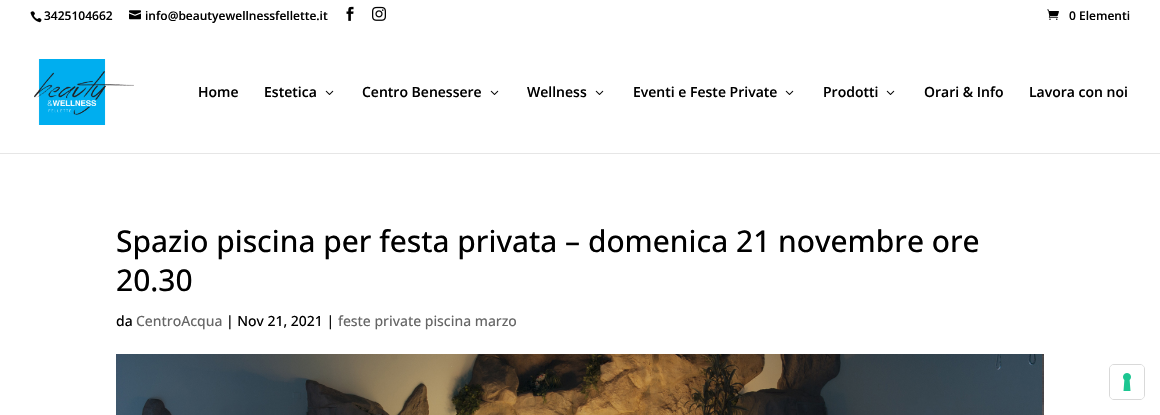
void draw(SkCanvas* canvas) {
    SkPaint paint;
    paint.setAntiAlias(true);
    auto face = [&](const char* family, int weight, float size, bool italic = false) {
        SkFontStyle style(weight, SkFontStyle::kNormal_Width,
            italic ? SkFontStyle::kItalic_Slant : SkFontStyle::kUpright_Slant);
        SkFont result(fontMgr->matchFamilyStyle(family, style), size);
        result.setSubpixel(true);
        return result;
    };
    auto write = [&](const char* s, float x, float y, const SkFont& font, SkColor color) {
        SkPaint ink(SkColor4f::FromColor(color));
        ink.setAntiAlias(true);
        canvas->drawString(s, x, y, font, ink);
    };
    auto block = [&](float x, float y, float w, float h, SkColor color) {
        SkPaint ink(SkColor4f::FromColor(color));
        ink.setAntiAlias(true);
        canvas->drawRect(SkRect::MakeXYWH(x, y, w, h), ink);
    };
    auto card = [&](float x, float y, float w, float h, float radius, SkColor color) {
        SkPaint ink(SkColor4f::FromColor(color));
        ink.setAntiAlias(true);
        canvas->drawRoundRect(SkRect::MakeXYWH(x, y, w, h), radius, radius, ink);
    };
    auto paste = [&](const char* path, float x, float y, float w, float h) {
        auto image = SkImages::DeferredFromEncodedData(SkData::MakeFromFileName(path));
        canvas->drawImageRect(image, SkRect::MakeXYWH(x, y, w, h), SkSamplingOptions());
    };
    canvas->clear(SK_ColorWHITE);
    paste("pic1.png", 30, 11, 12, 12);
    auto kFont1 = face("Open Sans", 600, 12);
    write("3425104662", 44, 20, kFont1, SK_ColorBLACK);
    paste("pic2.png", 129, 10, 12, 10);
    write("info@beautyewellnessfellette.it", 145, 20, kFont1, SK_ColorBLACK);
    paste("pic3.png", 346, 6, 8, 15);
    paste("pic4.png", 372, 6, 14, 15);
    paste("pic5.png", 1047, 9, 12, 11);
    write("0 Elementi", 1069, 20, kFont1, SK_ColorBLACK);
    block(0, 153, 1160, 1, SkColorSetRGB(230, 230, 230));
    paste("pic6.png", 34, 59, 100, 66);
    auto kFont2 = face("Open Sans", 600, 14);
    write("Home", 198, 97, kFont2, SK_ColorBLACK);
    write("Estetica", 264, 97, kFont2, SK_ColorBLACK);
    paste("pic7.png", 325, 90, 9, 5);
    write("Centro Benessere", 362, 97, kFont2, SK_ColorBLACK);
    paste("pic7.png", 490, 90, 9, 5);
    write("Wellness", 527, 97, kFont2, SK_ColorBLACK);
    paste("pic7.png", 595, 90, 9, 5);
    write("Eventi e Feste Private", 633, 97, kFont2, SK_ColorBLACK);
    paste("pic7.png", 785, 90, 9, 5);
    write("Prodotti", 823, 97, kFont2, SK_ColorBLACK);
    paste("pic7.png", 886, 90, 9, 5);
    write("Orari & Info", 924, 97, kFont2, SK_ColorBLACK);
    write("Lavora con noi", 1029, 97, kFont2, SK_ColorBLACK);
    auto kFont3 = face("Open Sans", 500, 30);
    write("Spazio piscina per festa privata – domenica 21 novembre ore", 116, 252, kFont3, SK_ColorBLACK);
    write("20.30", 116, 291, kFont3, SK_ColorBLACK);
    auto kFont4 = face("Open Sans", 500, 14);
    write("da", 116, 326, kFont4, SK_ColorBLACK);
    write("CentroAcqua", 136, 326, kFont4, SkColorSetRGB(102, 102, 102));
    write("| Nov 21, 2021 |", 226, 326, kFont4, SK_ColorBLACK);
    write("feste private piscina marzo", 338, 326, kFont4, SkColorSetRGB(102, 102, 102));
    paste("pic8.png", 116, 354, 928, 61);
    paint.setStyle(SkPaint::kStroke_Style);
    paint.setStrokeWidth(1);
    paint.setColor(SkColorSetRGB(217, 217, 217));
    canvas->drawRoundRect(SkRect::MakeXYWH(1109.5f, 364.5f, 35, 35), 4.5f, 4.5f, paint);
    card(1110, 365, 34, 34, 4, SK_ColorWHITE);
    paste("pic9.png", 1123, 373, 8, 18);
}
